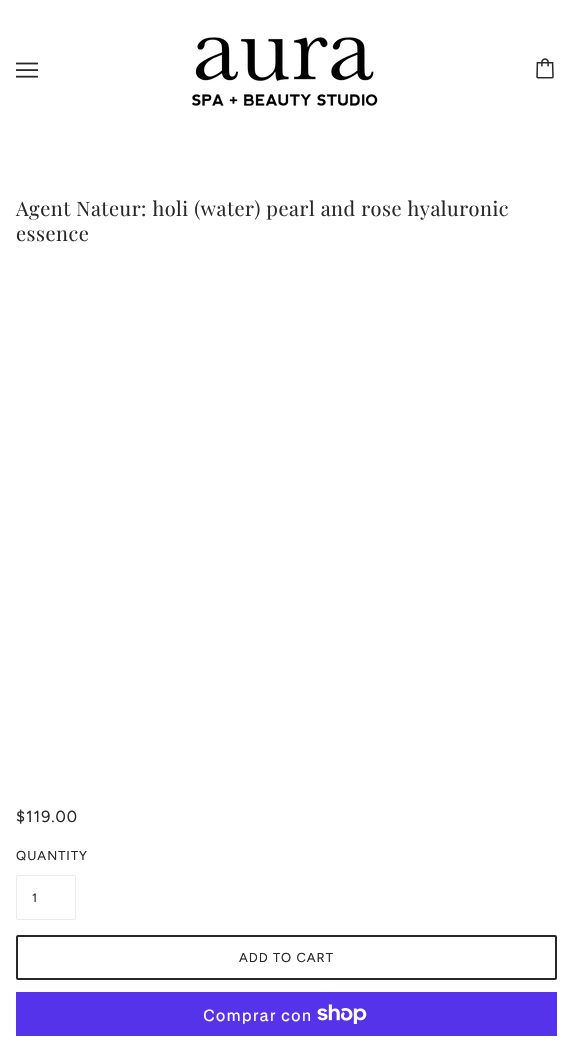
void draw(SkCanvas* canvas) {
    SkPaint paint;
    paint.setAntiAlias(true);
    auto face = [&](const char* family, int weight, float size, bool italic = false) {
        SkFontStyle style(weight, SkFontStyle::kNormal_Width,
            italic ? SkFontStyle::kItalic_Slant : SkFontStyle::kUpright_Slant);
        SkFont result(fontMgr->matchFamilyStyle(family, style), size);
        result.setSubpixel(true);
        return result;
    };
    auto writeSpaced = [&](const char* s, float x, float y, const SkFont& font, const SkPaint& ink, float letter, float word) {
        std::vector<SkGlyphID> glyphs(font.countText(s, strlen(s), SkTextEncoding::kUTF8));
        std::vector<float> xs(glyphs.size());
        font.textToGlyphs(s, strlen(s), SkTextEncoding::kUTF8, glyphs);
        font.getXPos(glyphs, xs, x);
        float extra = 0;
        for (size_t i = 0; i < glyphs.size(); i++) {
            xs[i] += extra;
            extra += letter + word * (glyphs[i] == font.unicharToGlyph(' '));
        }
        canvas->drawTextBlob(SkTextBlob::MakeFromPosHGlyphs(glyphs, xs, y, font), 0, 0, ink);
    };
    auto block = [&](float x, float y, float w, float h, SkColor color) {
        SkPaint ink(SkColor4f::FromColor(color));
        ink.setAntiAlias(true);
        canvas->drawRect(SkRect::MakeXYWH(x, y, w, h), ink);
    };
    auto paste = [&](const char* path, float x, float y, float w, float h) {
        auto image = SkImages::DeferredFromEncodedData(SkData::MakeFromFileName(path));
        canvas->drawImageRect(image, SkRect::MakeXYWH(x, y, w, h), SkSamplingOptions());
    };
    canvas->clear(SK_ColorWHITE);
    paste("pic1.png", 16, 62, 22, 16);
    paste("pic2.png", 192, 37, 186, 69);
    paste("pic3.png", 536, 58, 18, 21);
    auto kFont1 = face("Playfair Display", 400, 20);
    paint.setColor(SkColorSetRGB(39, 39, 39));
    writeSpaced("Agent Nateur: holi (water) pearl and rose hyaluronic", 16, 216, kFont1, paint, 0.5f, 0);
    writeSpaced("essence", 16, 241, kFont1, paint, 0.5f, 0);
    auto kFont2 = face("Figtree", 400, 16);
    writeSpaced("$119.00", 16, 822, kFont2, paint, 1, 0);
    auto kFont3 = face("Figtree", 400, 13);
    writeSpaced("QUANTITY", 16, 860, kFont3, paint, 1, 0);
    paint.setStyle(SkPaint::kStroke_Style);
    paint.setStrokeWidth(1);
    paint.setColor(SkColorSetRGB(235, 235, 235));
    canvas->drawRoundRect(SkRect::MakeXYWH(16.5f, 875.5f, 59, 44), 1.5f, 1.5f, paint);
    auto kFont4 = face("Figtree", 400, 12);
    paint.setStyle(SkPaint::kFill_Style);
    paint.setColor(SkColorSetRGB(39, 39, 39));
    writeSpaced("1", 32, 902, kFont4, paint, 1, 0);
    paint.setStyle(SkPaint::kStroke_Style);
    paint.setStrokeWidth(2);
    canvas->drawRoundRect(SkRect::MakeXYWH(17, 936, 539, 43), 1, 1, paint);
    paint.setStyle(SkPaint::kFill_Style);
    writeSpaced("ADD TO CART", 239, 962, kFont3, paint, 1, 0);
    block(16, 992, 541, 44, SkColorSetRGB(84, 51, 235));
    auto kFont5 = face("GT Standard", 400, 16);
    paint.setColor(SK_ColorWHITE);
    writeSpaced("Comprar con", 203, 1021, kFont5, paint, 1, 0);
    paste("pic4.png", 317, 1004, 50, 20);
}
